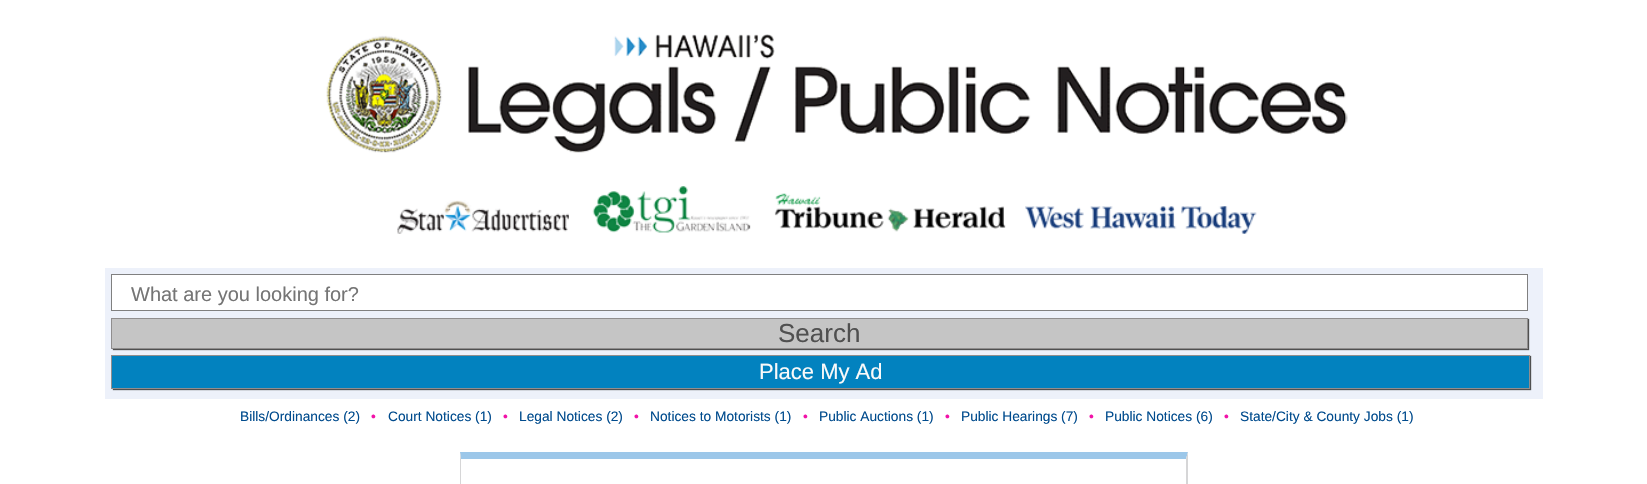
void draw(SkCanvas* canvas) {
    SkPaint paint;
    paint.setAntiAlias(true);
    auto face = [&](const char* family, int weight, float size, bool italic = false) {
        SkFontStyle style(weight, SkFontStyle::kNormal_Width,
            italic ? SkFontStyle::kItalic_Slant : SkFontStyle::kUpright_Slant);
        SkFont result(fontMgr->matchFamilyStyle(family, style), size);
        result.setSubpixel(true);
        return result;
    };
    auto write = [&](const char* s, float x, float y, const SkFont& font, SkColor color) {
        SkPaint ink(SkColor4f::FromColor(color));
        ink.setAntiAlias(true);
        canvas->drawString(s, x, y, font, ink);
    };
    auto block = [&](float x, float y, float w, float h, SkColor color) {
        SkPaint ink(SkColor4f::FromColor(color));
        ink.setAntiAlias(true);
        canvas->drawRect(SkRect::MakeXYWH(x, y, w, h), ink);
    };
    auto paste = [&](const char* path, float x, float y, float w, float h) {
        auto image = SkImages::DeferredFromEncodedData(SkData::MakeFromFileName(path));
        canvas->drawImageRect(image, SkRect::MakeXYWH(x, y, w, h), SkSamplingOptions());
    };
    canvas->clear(SK_ColorWHITE);
    paste("pic1.png", 326, 34, 1022, 119);
    paste("pic2.png", 397, 200, 172, 34);
    paste("pic3.png", 592, 186, 159, 47);
    paste("pic4.png", 774, 193, 232, 39);
    paste("pic5.png", 1025, 206, 232, 28);
    block(105, 268, 1438, 131, SkColorSetRGB(237, 241, 250));
    paint.setColor(SK_ColorWHITE);
    canvas->drawRect(SkRect::MakeXYWH(111.5f, 274.5f, 1416, 36), paint);
    paint.setStyle(SkPaint::kStroke_Style);
    paint.setStrokeWidth(1);
    paint.setColor(SkColorSetRGB(128, 128, 128));
    canvas->drawRect(SkRect::MakeXYWH(111.5f, 274.5f, 1416, 36), paint);
    auto kFont1 = face("Liberation Sans", 400, 20);
    write("What are you looking for?", 131, 301, kFont1, SkColorSetRGB(117, 117, 117));
    paint.setStyle(SkPaint::kFill_Style);
    paint.setColor(SkColorSetRGB(80, 80, 80));
    paint.setMaskFilter(SkMaskFilter::MakeBlur(kNormal_SkBlurStyle, 0.5f));
    canvas->drawRect(SkRect::MakeXYWH(113, 319, 1416, 31), paint);
    paint.setMaskFilter(nullptr);
    paint.setColor(SkColorSetRGB(197, 197, 197));
    canvas->drawRect(SkRect::MakeXYWH(111.5f, 318.5f, 1416, 30), paint);
    paint.setStyle(SkPaint::kStroke_Style);
    paint.setColor(SkColorSetRGB(144, 142, 142));
    canvas->drawRect(SkRect::MakeXYWH(111.5f, 318.5f, 1416, 30), paint);
    auto kFont2 = face("Liberation Sans", 400, 26);
    write("Search", 778, 342, kFont2, SkColorSetRGB(80, 80, 80));
    paint.setStyle(SkPaint::kFill_Style);
    paint.setColor(SkColorSetRGB(80, 80, 80));
    paint.setMaskFilter(SkMaskFilter::MakeBlur(kNormal_SkBlurStyle, 0.5f));
    canvas->drawRect(SkRect::MakeXYWH(113, 356, 1418, 34), paint);
    paint.setMaskFilter(nullptr);
    paint.setColor(SkColorSetRGB(2, 130, 191));
    canvas->drawRect(SkRect::MakeXYWH(111.5f, 355.5f, 1418, 33), paint);
    paint.setStyle(SkPaint::kStroke_Style);
    paint.setColor(SkColorSetRGB(144, 142, 142));
    canvas->drawRect(SkRect::MakeXYWH(111.5f, 355.5f, 1418, 33), paint);
    auto kFont3 = face("Liberation Sans", 400, 22);
    write("Place My Ad", 759, 379, kFont3, SkColorSetRGB(250, 250, 250));
    auto kFont4 = face("Liberation Sans", 400, 13.75f);
    write("Bills/Ordinances (2)", 240, 421, kFont4, SkColorSetRGB(0, 75, 141));
    write("•", 371, 421, kFont4, SkColorSetRGB(242, 18, 168));
    write("Court Notices (1)", 388, 421, kFont4, SkColorSetRGB(0, 75, 141));
    write("•", 503, 421, kFont4, SkColorSetRGB(242, 18, 168));
    write("Legal Notices (2)", 519, 421, kFont4, SkColorSetRGB(0, 75, 141));
    write("•", 634, 421, kFont4, SkColorSetRGB(242, 18, 168));
    write("Notices to Motorists (1)", 650, 421, kFont4, SkColorSetRGB(0, 75, 141));
    write("•", 803, 421, kFont4, SkColorSetRGB(242, 18, 168));
    write("Public Auctions (1)", 819, 421, kFont4, SkColorSetRGB(0, 75, 141));
    write("•", 945, 421, kFont4, SkColorSetRGB(242, 18, 168));
    write("Public Hearings (7)", 961, 421, kFont4, SkColorSetRGB(0, 75, 141));
    write("•", 1089, 421, kFont4, SkColorSetRGB(242, 18, 168));
    write("Public Notices (6)", 1105, 421, kFont4, SkColorSetRGB(0, 75, 141));
    write("•", 1224, 421, kFont4, SkColorSetRGB(242, 18, 168));
    write("State/City & County Jobs (1)", 1240, 421, kFont4, SkColorSetRGB(0, 75, 141));
    paint.setStyle(SkPaint::kFill_Style);
    paint.setColor(SkColorSetRGB(156, 199, 233));
    canvas->drawPath(SkPathBuilder().moveTo(460, 452).lineTo(1188, 452).lineTo(1186, 459).lineTo(461, 459).close().detach(), paint);
    paint.setColor(SkColorSetRGB(214, 214, 215));
    canvas->drawPath(SkPathBuilder().moveTo(1188, 452).lineTo(1188, 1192).lineTo(1186, 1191).lineTo(1186, 459).close().detach(), paint);
    canvas->drawPath(SkPathBuilder().moveTo(460, 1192).lineTo(460, 452).lineTo(461, 459).lineTo(461, 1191).close().detach(), paint);
}
